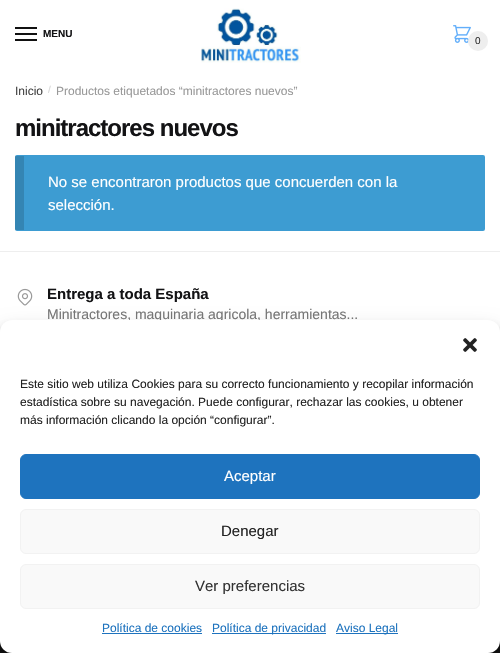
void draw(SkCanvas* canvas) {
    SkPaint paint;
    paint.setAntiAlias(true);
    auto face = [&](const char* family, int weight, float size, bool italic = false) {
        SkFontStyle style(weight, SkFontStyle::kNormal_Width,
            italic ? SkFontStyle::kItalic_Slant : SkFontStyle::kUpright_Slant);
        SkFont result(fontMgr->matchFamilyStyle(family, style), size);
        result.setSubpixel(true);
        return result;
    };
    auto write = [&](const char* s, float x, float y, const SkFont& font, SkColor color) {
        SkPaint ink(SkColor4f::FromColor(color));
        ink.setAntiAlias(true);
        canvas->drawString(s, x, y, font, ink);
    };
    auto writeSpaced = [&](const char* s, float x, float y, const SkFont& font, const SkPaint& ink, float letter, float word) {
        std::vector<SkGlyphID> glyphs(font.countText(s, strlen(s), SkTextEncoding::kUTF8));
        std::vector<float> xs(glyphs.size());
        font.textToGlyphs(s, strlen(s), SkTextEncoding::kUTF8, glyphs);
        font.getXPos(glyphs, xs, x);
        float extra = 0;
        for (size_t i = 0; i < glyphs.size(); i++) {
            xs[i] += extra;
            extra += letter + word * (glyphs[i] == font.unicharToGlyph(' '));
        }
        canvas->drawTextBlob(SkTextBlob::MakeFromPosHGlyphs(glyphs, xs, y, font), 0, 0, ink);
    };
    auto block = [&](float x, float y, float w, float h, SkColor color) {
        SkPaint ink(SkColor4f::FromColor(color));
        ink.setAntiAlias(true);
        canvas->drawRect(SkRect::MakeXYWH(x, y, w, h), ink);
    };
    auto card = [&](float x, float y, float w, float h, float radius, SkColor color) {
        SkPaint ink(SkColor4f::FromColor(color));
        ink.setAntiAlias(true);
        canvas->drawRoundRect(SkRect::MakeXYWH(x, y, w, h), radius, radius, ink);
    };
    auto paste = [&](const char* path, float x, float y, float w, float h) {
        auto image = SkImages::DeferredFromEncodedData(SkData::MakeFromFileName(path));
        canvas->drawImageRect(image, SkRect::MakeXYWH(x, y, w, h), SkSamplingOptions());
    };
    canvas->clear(SK_ColorWHITE);
    block(15, 27, 22, 2, SkColorSetRGB(17, 17, 17));
    block(15, 33, 22, 2, SkColorSetRGB(17, 17, 17));
    auto kFont1 = face("Liberation Sans", 700, 10);
    write("MENU", 43, 37, kFont1, SkColorSetRGB(19, 19, 21));
    block(15, 39, 22, 2, SkColorSetRGB(17, 17, 17));
    paste("pic1.png", 201, 8, 100, 55);
    paste("pic2.png", 453, 25, 18, 18);
    paint.setColor(SkColorSetRGB(238, 238, 238));
    canvas->drawCircle(478, 41, 10, paint);
    auto kFont2 = face("Liberation Sans", 400, 10);
    write("0", 475, 44, kFont2, SkColorSetRGB(51, 51, 51));
    auto kFont3 = face("Liberation Sans", 400, 12);
    write("Inicio", 15, 95, kFont3, SkColorSetRGB(68, 68, 68));
    write("/", 48, 93, kFont2, SkColorSetRGB(214, 214, 214));
    write("Productos etiquetados “minitractores nuevos”", 56, 95, kFont3, SkColorSetRGB(153, 153, 153));
    auto kFont4 = face("Liberation Sans", 700, 24);
    paint.setColor(SkColorSetRGB(19, 19, 21));
    writeSpaced("minitractores nuevos", 15, 136, kFont4, paint, -1, 0);
    card(15, 155, 470, 76, 2, SkColorSetRGB(61, 156, 210));
    block(15, 156, 9, 74, SkColorSetARGB(38, 0, 0, 0));
    auto kFont5 = face("Liberation Sans", 400, 15);
    write("No se encontraron productos que concuerden con la", 48, 187, kFont5, SK_ColorWHITE);
    write("selección.", 48, 210, kFont5, SK_ColorWHITE);
    block(0, 251, 500, 1, SkColorSetRGB(238, 238, 238));
    auto kFont6 = face("Liberation Sans", 700, 15);
    write("Entrega a toda España", 47, 299, kFont6, SkColorSetRGB(19, 19, 21));
    paste("pic3.png", 17, 288, 16, 18);
    auto kFont7 = face("Liberation Sans", 400, 14);
    write("Minitractores, maquinaria agricola, herramientas...", 47, 319, kFont7, SkColorSetRGB(119, 119, 119));
    block(0, 641, 500, 12, SkColorSetRGB(17, 17, 17));
    paint.setColor(SkColorSetARGB(59, 0, 0, 0));
    paint.setMaskFilter(SkMaskFilter::MakeBlur(kNormal_SkBlurStyle, 3));
    canvas->drawRoundRect(SkRect::MakeXYWH(0, 326, 500, 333), 12, 12, paint);
    paint.setMaskFilter(nullptr);
    paint.setColor(SkColorSetARGB(48, 0, 0, 0));
    paint.setMaskFilter(SkMaskFilter::MakeBlur(kNormal_SkBlurStyle, 10));
    canvas->drawRoundRect(SkRect::MakeXYWH(0, 330, 500, 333), 12, 12, paint);
    paint.setMaskFilter(nullptr);
    card(0, 320, 500, 333, 12, SK_ColorWHITE);
    paste("pic4.png", 463, 338, 14, 14);
    write("Este sitio web utiliza Cookies para su correcto funcionamiento y recopilar información", 20, 388, kFont3, SkColorSetRGB(34, 34, 34));
    write("estadística sobre su navegación. Puede configurar, rechazar las cookies, u obtener", 20, 406, kFont3, SkColorSetRGB(34, 34, 34));
    write("más información clicando la opción “configurar”.", 20, 424, kFont3, SkColorSetRGB(34, 34, 34));
    paint.setColor(SkColorSetRGB(30, 115, 190));
    canvas->drawRoundRect(SkRect::MakeXYWH(20.5f, 454.5f, 459, 44), 5.5f, 5.5f, paint);
    paint.setStyle(SkPaint::kStroke_Style);
    paint.setStrokeWidth(1);
    canvas->drawRoundRect(SkRect::MakeXYWH(20.5f, 454.5f, 459, 44), 5.5f, 5.5f, paint);
    write("Aceptar", 224, 481, kFont5, SK_ColorWHITE);
    paint.setStyle(SkPaint::kFill_Style);
    paint.setColor(SkColorSetRGB(249, 249, 249));
    canvas->drawRoundRect(SkRect::MakeXYWH(20.5f, 509.5f, 459, 44), 5.5f, 5.5f, paint);
    paint.setStyle(SkPaint::kStroke_Style);
    paint.setColor(SkColorSetRGB(242, 242, 242));
    canvas->drawRoundRect(SkRect::MakeXYWH(20.5f, 509.5f, 459, 44), 5.5f, 5.5f, paint);
    write("Denegar", 221, 536, kFont5, SkColorSetRGB(34, 34, 34));
    paint.setStyle(SkPaint::kFill_Style);
    paint.setColor(SkColorSetRGB(249, 249, 249));
    canvas->drawRoundRect(SkRect::MakeXYWH(20.5f, 564.5f, 459, 44), 5.5f, 5.5f, paint);
    paint.setStyle(SkPaint::kStroke_Style);
    paint.setColor(SkColorSetRGB(242, 242, 242));
    canvas->drawRoundRect(SkRect::MakeXYWH(20.5f, 564.5f, 459, 44), 5.5f, 5.5f, paint);
    write("Ver preferencias", 195, 591, kFont5, SkColorSetRGB(51, 51, 51));
    write("Política de cookies", 102, 632, kFont3, SkColorSetRGB(30, 115, 190));
    block(102, 633, 100, 1, SkColorSetRGB(30, 115, 190));
    block(212, 633, 114, 1, SkColorSetRGB(30, 115, 190));
    write("Política de privacidad", 212, 632, kFont3, SkColorSetRGB(30, 115, 190));
    block(336, 633, 62, 1, SkColorSetRGB(30, 115, 190));
    write("Aviso Legal", 336, 632, kFont3, SkColorSetRGB(30, 115, 190));
}
